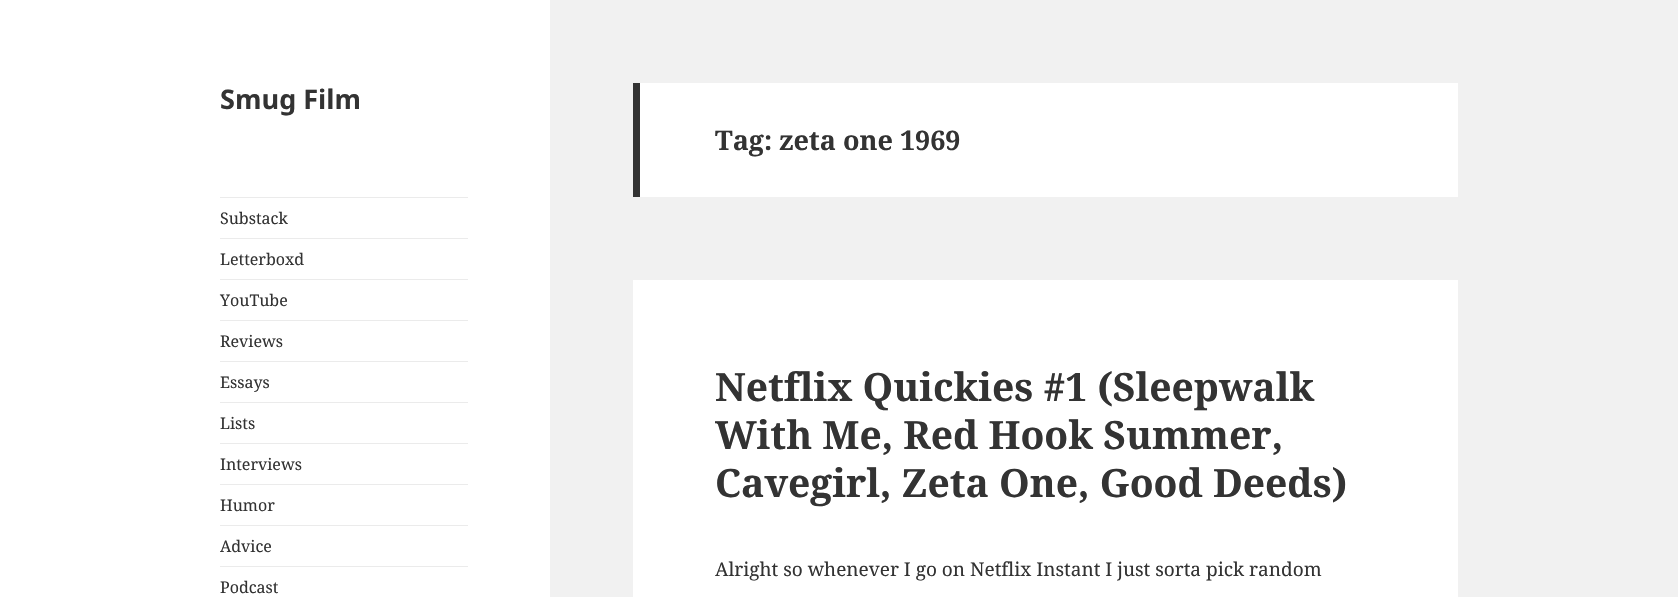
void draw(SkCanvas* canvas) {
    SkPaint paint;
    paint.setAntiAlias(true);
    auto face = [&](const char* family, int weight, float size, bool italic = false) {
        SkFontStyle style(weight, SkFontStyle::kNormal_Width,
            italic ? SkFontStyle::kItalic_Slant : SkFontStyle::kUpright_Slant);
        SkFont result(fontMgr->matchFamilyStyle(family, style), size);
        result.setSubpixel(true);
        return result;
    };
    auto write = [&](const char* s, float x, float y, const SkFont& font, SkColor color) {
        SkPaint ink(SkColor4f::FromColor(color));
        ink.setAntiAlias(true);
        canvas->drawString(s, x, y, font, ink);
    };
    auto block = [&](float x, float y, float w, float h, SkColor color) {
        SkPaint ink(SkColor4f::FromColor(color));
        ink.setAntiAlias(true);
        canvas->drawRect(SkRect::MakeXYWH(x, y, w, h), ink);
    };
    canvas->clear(SkColorSetRGB(241, 241, 241));
    block(0, 0, 550, 597, SK_ColorWHITE);
    auto kFont1 = face("Noto Sans", 700, 27);
    write("Smug Film", 220, 109, kFont1, SkColorSetRGB(51, 51, 51));
    block(220, 197, 248, 1, SkColorSetRGB(235, 235, 235));
    auto kFont2 = face("Noto Serif", 400, 16);
    write("Substack", 220, 224, kFont2, SkColorSetRGB(51, 51, 51));
    block(220, 238, 248, 1, SkColorSetRGB(235, 235, 235));
    write("Letterboxd", 220, 265, kFont2, SkColorSetRGB(51, 51, 51));
    block(220, 279, 248, 1, SkColorSetRGB(235, 235, 235));
    write("YouTube", 220, 306, kFont2, SkColorSetRGB(51, 51, 51));
    block(220, 320, 248, 1, SkColorSetRGB(235, 235, 235));
    write("Reviews", 220, 347, kFont2, SkColorSetRGB(51, 51, 51));
    block(220, 361, 248, 1, SkColorSetRGB(235, 235, 235));
    write("Essays", 220, 388, kFont2, SkColorSetRGB(51, 51, 51));
    block(220, 402, 248, 1, SkColorSetRGB(235, 235, 235));
    write("Lists", 220, 429, kFont2, SkColorSetRGB(51, 51, 51));
    block(220, 443, 248, 1, SkColorSetRGB(235, 235, 235));
    write("Interviews", 220, 470, kFont2, SkColorSetRGB(51, 51, 51));
    block(220, 484, 248, 1, SkColorSetRGB(235, 235, 235));
    write("Humor", 220, 511, kFont2, SkColorSetRGB(51, 51, 51));
    block(220, 525, 248, 1, SkColorSetRGB(235, 235, 235));
    write("Advice", 220, 552, kFont2, SkColorSetRGB(51, 51, 51));
    block(220, 566, 248, 1, SkColorSetRGB(235, 235, 235));
    write("Podcast", 220, 593, kFont2, SkColorSetRGB(51, 51, 51));
    block(640, 83, 818, 114, SK_ColorWHITE);
    block(633, 83, 7, 114, SkColorSetRGB(51, 51, 51));
    auto kFont3 = face("Noto Serif", 700, 27);
    write("Tag: zeta one 1969", 715, 150, kFont3, SkColorSetRGB(51, 51, 51));
    block(633, 280, 825, 317, SK_ColorWHITE);
    auto kFont4 = face("Noto Serif", 700, 39);
    write("Netflix Quickies #1 (Sleepwalk", 715, 401, kFont4, SkColorSetRGB(51, 51, 51));
    write("With Me, Red Hook Summer,", 715, 449, kFont4, SkColorSetRGB(51, 51, 51));
    write("Cavegirl, Zeta One, Good Deeds)", 715, 497, kFont4, SkColorSetRGB(51, 51, 51));
    auto kFont5 = face("Noto Serif", 400, 19);
    write("Alright so whenever I go on Netflix Instant I just sorta pick random", 715, 576, kFont5, SkColorSetRGB(51, 51, 51));
}
